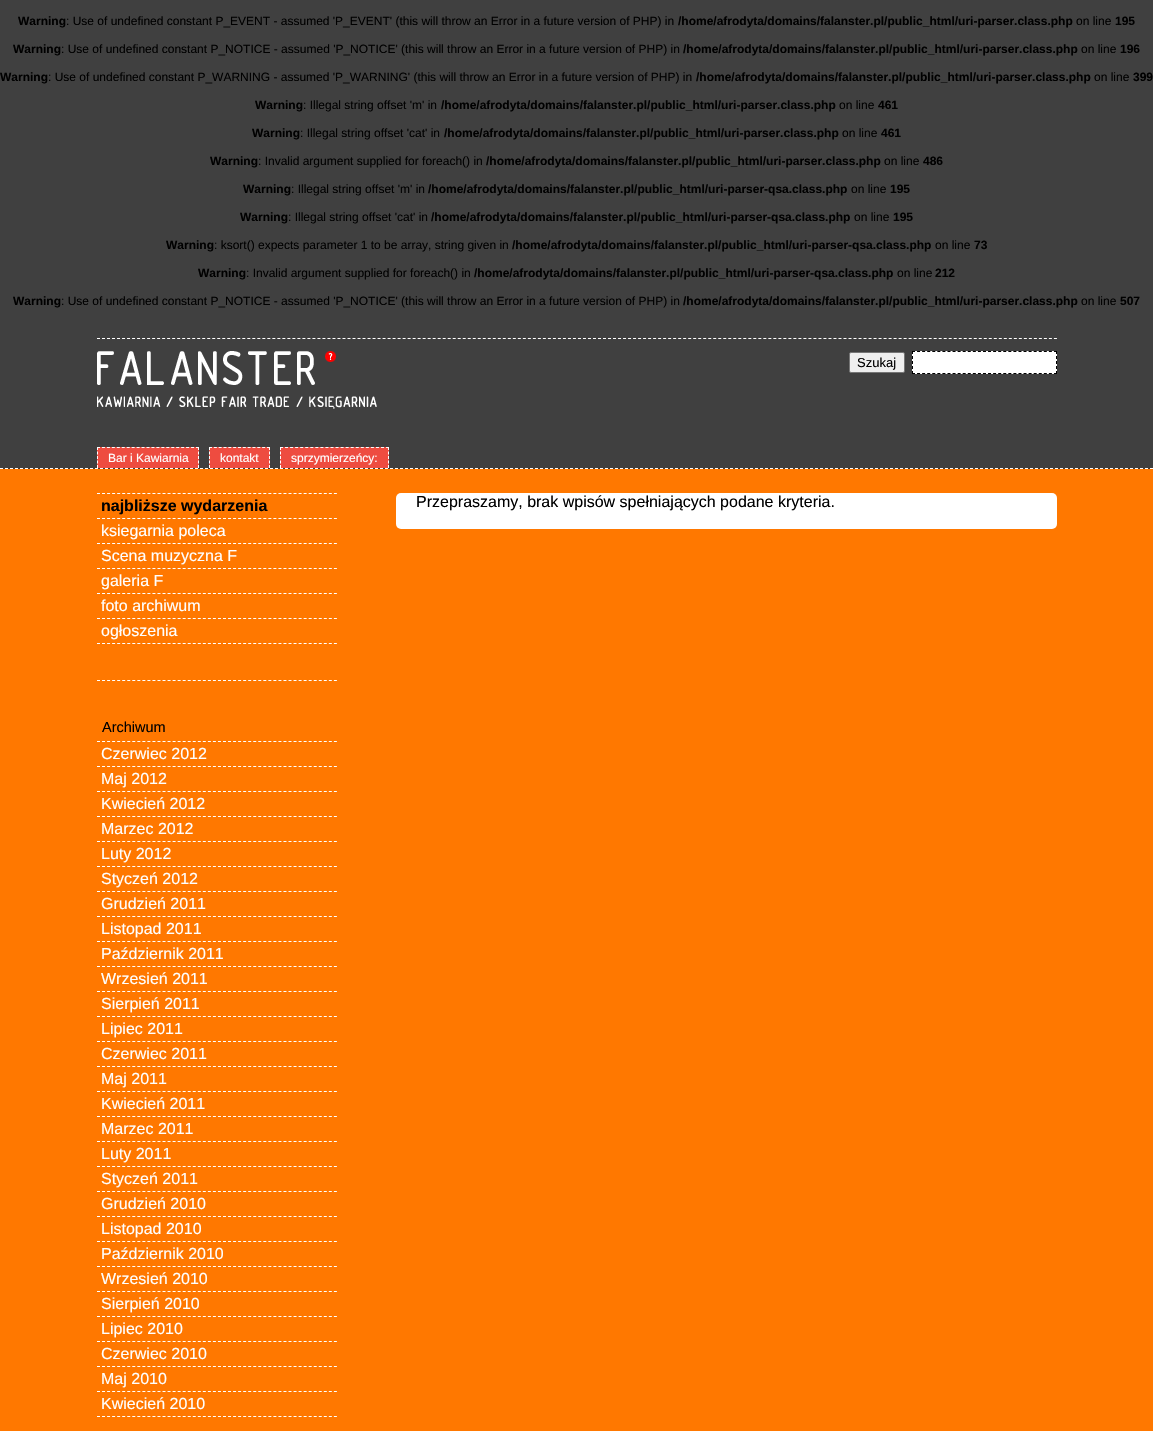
void draw(SkCanvas* canvas) {
    SkPaint paint;
    paint.setAntiAlias(true);
    auto face = [&](const char* family, int weight, float size, bool italic = false) {
        SkFontStyle style(weight, SkFontStyle::kNormal_Width,
            italic ? SkFontStyle::kItalic_Slant : SkFontStyle::kUpright_Slant);
        SkFont result(fontMgr->matchFamilyStyle(family, style), size);
        result.setSubpixel(true);
        return result;
    };
    auto write = [&](const char* s, float x, float y, const SkFont& font, SkColor color) {
        SkPaint ink(SkColor4f::FromColor(color));
        ink.setAntiAlias(true);
        canvas->drawString(s, x, y, font, ink);
    };
    auto block = [&](float x, float y, float w, float h, SkColor color) {
        SkPaint ink(SkColor4f::FromColor(color));
        ink.setAntiAlias(true);
        canvas->drawRect(SkRect::MakeXYWH(x, y, w, h), ink);
    };
    auto card = [&](float x, float y, float w, float h, float radius, SkColor color) {
        SkPaint ink(SkColor4f::FromColor(color));
        ink.setAntiAlias(true);
        canvas->drawRoundRect(SkRect::MakeXYWH(x, y, w, h), radius, radius, ink);
    };
    auto paste = [&](const char* path, float x, float y, float w, float h) {
        auto image = SkImages::DeferredFromEncodedData(SkData::MakeFromFileName(path));
        canvas->drawImageRect(image, SkRect::MakeXYWH(x, y, w, h), SkSamplingOptions());
    };
    canvas->clear(SkColorSetRGB(64, 64, 64));
    auto kFont1 = face("Liberation Sans", 700, 12);
    write("Warning", 18, 25, kFont1, SK_ColorBLACK);
    auto kFont2 = face("Liberation Sans", 400, 12);
    write(": Use of undefined constant P_EVENT - assumed 'P_EVENT' (this will throw an Error in a future version of PHP) in", 66, 25, kFont2, SK_ColorBLACK);
    write("/home/afrodyta/domains/falanster.pl/public_html/uri-parser.class.php", 678, 25, kFont1, SK_ColorBLACK);
    write("on line", 1076, 25, kFont2, SK_ColorBLACK);
    write("195", 1115, 25, kFont1, SK_ColorBLACK);
    write("Warning", 13, 53, kFont1, SK_ColorBLACK);
    write(": Use of undefined constant P_NOTICE - assumed 'P_NOTICE' (this will throw an Error in a future version of PHP) in", 61, 53, kFont2, SK_ColorBLACK);
    write("/home/afrodyta/domains/falanster.pl/public_html/uri-parser.class.php", 683, 53, kFont1, SK_ColorBLACK);
    write("on line", 1081, 53, kFont2, SK_ColorBLACK);
    write("196", 1120, 53, kFont1, SK_ColorBLACK);
    write("Warning", 0, 81, kFont1, SK_ColorBLACK);
    write(": Use of undefined constant P_WARNING - assumed 'P_WARNING' (this will throw an Error in a future version of PHP) in", 48, 81, kFont2, SK_ColorBLACK);
    write("/home/afrodyta/domains/falanster.pl/public_html/uri-parser.class.php", 696, 81, kFont1, SK_ColorBLACK);
    write("on line", 1094, 81, kFont2, SK_ColorBLACK);
    write("399", 1133, 81, kFont1, SK_ColorBLACK);
    write("Warning", 255, 109, kFont1, SK_ColorBLACK);
    write(": Illegal string offset 'm' in", 303, 109, kFont2, SK_ColorBLACK);
    write("/home/afrodyta/domains/falanster.pl/public_html/uri-parser.class.php", 441, 109, kFont1, SK_ColorBLACK);
    write("on line", 839, 109, kFont2, SK_ColorBLACK);
    write("461", 878, 109, kFont1, SK_ColorBLACK);
    write("Warning", 252, 137, kFont1, SK_ColorBLACK);
    write(": Illegal string offset 'cat' in", 300, 137, kFont2, SK_ColorBLACK);
    write("/home/afrodyta/domains/falanster.pl/public_html/uri-parser.class.php", 444, 137, kFont1, SK_ColorBLACK);
    write("on line", 842, 137, kFont2, SK_ColorBLACK);
    write("461", 881, 137, kFont1, SK_ColorBLACK);
    write("Warning", 210, 165, kFont1, SK_ColorBLACK);
    write(": Invalid argument supplied for foreach() in", 258, 165, kFont2, SK_ColorBLACK);
    write("/home/afrodyta/domains/falanster.pl/public_html/uri-parser.class.php", 486, 165, kFont1, SK_ColorBLACK);
    write("on line", 884, 165, kFont2, SK_ColorBLACK);
    write("486", 923, 165, kFont1, SK_ColorBLACK);
    write("Warning", 243, 193, kFont1, SK_ColorBLACK);
    write(": Illegal string offset 'm' in", 291, 193, kFont2, SK_ColorBLACK);
    write("/home/afrodyta/domains/falanster.pl/public_html/uri-parser-qsa.class.php", 428, 193, kFont1, SK_ColorBLACK);
    write("on line", 851, 193, kFont2, SK_ColorBLACK);
    write("195", 890, 193, kFont1, SK_ColorBLACK);
    write("Warning", 240, 221, kFont1, SK_ColorBLACK);
    write(": Illegal string offset 'cat' in", 288, 221, kFont2, SK_ColorBLACK);
    write("/home/afrodyta/domains/falanster.pl/public_html/uri-parser-qsa.class.php", 431, 221, kFont1, SK_ColorBLACK);
    write("on line", 854, 221, kFont2, SK_ColorBLACK);
    write("195", 893, 221, kFont1, SK_ColorBLACK);
    write("Warning", 166, 249, kFont1, SK_ColorBLACK);
    write(": ksort() expects parameter 1 to be array, string given in", 214, 249, kFont2, SK_ColorBLACK);
    write("/home/afrodyta/domains/falanster.pl/public_html/uri-parser-qsa.class.php", 512, 249, kFont1, SK_ColorBLACK);
    write("on line", 935, 249, kFont2, SK_ColorBLACK);
    write("73", 974, 249, kFont1, SK_ColorBLACK);
    write("Warning", 198, 277, kFont1, SK_ColorBLACK);
    write(": Invalid argument supplied for foreach() in", 246, 277, kFont2, SK_ColorBLACK);
    write("/home/afrodyta/domains/falanster.pl/public_html/uri-parser-qsa.class.php", 474, 277, kFont1, SK_ColorBLACK);
    write("on line", 897, 277, kFont2, SK_ColorBLACK);
    write("212", 935, 277, kFont1, SK_ColorBLACK);
    write("Warning", 13, 305, kFont1, SK_ColorBLACK);
    write(": Use of undefined constant P_NOTICE - assumed 'P_NOTICE' (this will throw an Error in a future version of PHP) in", 61, 305, kFont2, SK_ColorBLACK);
    write("/home/afrodyta/domains/falanster.pl/public_html/uri-parser.class.php", 683, 305, kFont1, SK_ColorBLACK);
    write("on line", 1081, 305, kFont2, SK_ColorBLACK);
    write("507", 1120, 305, kFont1, SK_ColorBLACK);
    paint.setStyle(SkPaint::kStroke_Style);
    paint.setStrokeWidth(1);
    paint.setColor(SK_ColorWHITE);
    paint.setPathEffect(SkDashPathEffect::Make({{3, 2}}, 0));
    canvas->drawPath(SkPathBuilder().moveTo(0, 468.5f).lineTo(1153, 468.5f).detach(), paint);
    paint.setPathEffect(nullptr);
    paint.setPathEffect(SkDashPathEffect::Make({{3, 2.01f}}, 0));
    canvas->drawPath(SkPathBuilder().moveTo(97, 338.5f).lineTo(1057, 338.5f).detach(), paint);
    paint.setPathEffect(nullptr);
    paste("pic1.png", 97, 351, 218, 34);
    paste("pic2.png", 325, 351, 11, 11);
    paint.setStyle(SkPaint::kFill_Style);
    paint.setColor(SkColorSetRGB(239, 239, 239));
    canvas->drawRoundRect(SkRect::MakeXYWH(849.5f, 352.5f, 55, 20), 1.5f, 1.5f, paint);
    paint.setStyle(SkPaint::kStroke_Style);
    paint.setColor(SkColorSetRGB(118, 118, 118));
    canvas->drawRoundRect(SkRect::MakeXYWH(849.5f, 352.5f, 55, 20), 1.5f, 1.5f, paint);
    auto kFont3 = face("Liberation Sans", 400, 13);
    write("Szukaj", 857, 367, kFont3, SK_ColorBLACK);
    block(912, 351, 145, 23, SK_ColorWHITE);
    paint.setColor(SK_ColorBLACK);
    paint.setPathEffect(SkDashPathEffect::Make({{3, 2.07f}}, 0));
    canvas->drawPath(SkPathBuilder().moveTo(912, 351.5f).lineTo(1057, 351.5f).detach(), paint);
    paint.setPathEffect(nullptr);
    paint.setPathEffect(SkDashPathEffect::Make({{3, 2}}, 0));
    canvas->drawPath(SkPathBuilder().moveTo(1056.5f, 351).lineTo(1056.5f, 374).detach(), paint);
    paint.setPathEffect(nullptr);
    paint.setPathEffect(SkDashPathEffect::Make({{3, 2.07f}}, 0));
    canvas->drawPath(SkPathBuilder().moveTo(912, 373.5f).lineTo(1057, 373.5f).detach(), paint);
    paint.setPathEffect(nullptr);
    paint.setPathEffect(SkDashPathEffect::Make({{3, 2}}, 0));
    canvas->drawPath(SkPathBuilder().moveTo(912.5f, 351).lineTo(912.5f, 374).detach(), paint);
    paint.setPathEffect(nullptr);
    paste("pic3.png", 97, 396, 64, 11);
    paste("pic4.png", 166, 396, 124, 11);
    paste("pic5.png", 296, 396, 81, 13);
    block(97, 447, 102, 21, SkColorSetRGB(238, 76, 64));
    paint.setColor(SK_ColorWHITE);
    paint.setPathEffect(SkDashPathEffect::Make({{3, 1.95f}}, 0));
    canvas->drawPath(SkPathBuilder().moveTo(97, 447.5f).lineTo(199, 447.5f).detach(), paint);
    paint.setPathEffect(nullptr);
    paint.setPathEffect(SkDashPathEffect::Make({{3, 1.5f}}, 0));
    canvas->drawPath(SkPathBuilder().moveTo(198.5f, 447).lineTo(198.5f, 468).detach(), paint);
    paint.setPathEffect(nullptr);
    paint.setPathEffect(SkDashPathEffect::Make({{3, 1.5f}}, 0));
    canvas->drawPath(SkPathBuilder().moveTo(97.5f, 447).lineTo(97.5f, 468).detach(), paint);
    paint.setPathEffect(nullptr);
    write("Bar i Kawiarnia", 108, 462, kFont2, SK_ColorWHITE);
    block(209, 447, 61, 21, SkColorSetRGB(238, 76, 64));
    paint.setPathEffect(SkDashPathEffect::Make({{3, 1.83f}}, 0));
    canvas->drawPath(SkPathBuilder().moveTo(209, 447.5f).lineTo(270, 447.5f).detach(), paint);
    paint.setPathEffect(nullptr);
    paint.setPathEffect(SkDashPathEffect::Make({{3, 1.5f}}, 0));
    canvas->drawPath(SkPathBuilder().moveTo(269.5f, 447).lineTo(269.5f, 468).moveTo(209.5f, 447).lineTo(209.5f, 468).detach(), paint);
    paint.setPathEffect(nullptr);
    write("kontakt", 220, 462, kFont2, SK_ColorWHITE);
    block(280, 447, 109, 21, SkColorSetRGB(238, 76, 64));
    paint.setPathEffect(SkDashPathEffect::Make({{3, 2.05f}}, 0));
    canvas->drawPath(SkPathBuilder().moveTo(280, 447.5f).lineTo(389, 447.5f).detach(), paint);
    paint.setPathEffect(nullptr);
    paint.setPathEffect(SkDashPathEffect::Make({{3, 1.5f}}, 0));
    canvas->drawPath(SkPathBuilder().moveTo(388.5f, 447).lineTo(388.5f, 468).detach(), paint);
    paint.setPathEffect(nullptr);
    paint.setPathEffect(SkDashPathEffect::Make({{3, 1.5f}}, 0));
    canvas->drawPath(SkPathBuilder().moveTo(280.5f, 447).lineTo(280.5f, 468).detach(), paint);
    paint.setPathEffect(nullptr);
    write("sprzymierzeńcy:", 291, 462, kFont2, SK_ColorWHITE);
    block(0, 469, 1153, 962, SkColorSetRGB(255, 120, 0));
    paint.setPathEffect(SkDashPathEffect::Make({{3, 2.04f}}, 0));
    canvas->drawPath(SkPathBuilder().moveTo(97, 493.5f).lineTo(337, 493.5f).detach(), paint);
    paint.setPathEffect(nullptr);
    paint.setPathEffect(SkDashPathEffect::Make({{3, 2.04f}}, 0));
    canvas->drawPath(SkPathBuilder().moveTo(97, 518.5f).lineTo(337, 518.5f).detach(), paint);
    paint.setPathEffect(nullptr);
    auto kFont4 = face("Liberation Sans", 700, 16);
    write("najbliższe wydarzenia", 101, 511, kFont4, SK_ColorBLACK);
    paint.setPathEffect(SkDashPathEffect::Make({{3, 2.04f}}, 0));
    canvas->drawPath(SkPathBuilder().moveTo(97, 543.5f).lineTo(337, 543.5f).detach(), paint);
    paint.setPathEffect(nullptr);
    auto kFont5 = face("Liberation Sans", 400, 16);
    write("ksiegarnia poleca", 101, 536, kFont5, SK_ColorWHITE);
    paint.setPathEffect(SkDashPathEffect::Make({{3, 2.04f}}, 0));
    canvas->drawPath(SkPathBuilder().moveTo(97, 568.5f).lineTo(337, 568.5f).detach(), paint);
    paint.setPathEffect(nullptr);
    write("Scena muzyczna F", 101, 561, kFont5, SK_ColorWHITE);
    paint.setPathEffect(SkDashPathEffect::Make({{3, 2.04f}}, 0));
    canvas->drawPath(SkPathBuilder().moveTo(97, 593.5f).lineTo(337, 593.5f).detach(), paint);
    paint.setPathEffect(nullptr);
    write("galeria F", 101, 586, kFont5, SK_ColorWHITE);
    paint.setPathEffect(SkDashPathEffect::Make({{3, 2.04f}}, 0));
    canvas->drawPath(SkPathBuilder().moveTo(97, 618.5f).lineTo(337, 618.5f).detach(), paint);
    paint.setPathEffect(nullptr);
    write("foto archiwum", 101, 611, kFont5, SK_ColorWHITE);
    paint.setPathEffect(SkDashPathEffect::Make({{3, 2.04f}}, 0));
    canvas->drawPath(SkPathBuilder().moveTo(97, 643.5f).lineTo(337, 643.5f).detach(), paint);
    paint.setPathEffect(nullptr);
    write("ogłoszenia", 101, 636, kFont5, SK_ColorWHITE);
    paint.setPathEffect(SkDashPathEffect::Make({{3, 2.04f}}, 0));
    canvas->drawPath(SkPathBuilder().moveTo(97, 680.5f).lineTo(337, 680.5f).detach(), paint);
    paint.setPathEffect(nullptr);
    auto kFont6 = face("Liberation Sans", 400, 14.5f);
    write("Archiwum", 102, 732, kFont6, SK_ColorBLACK);
    paint.setPathEffect(SkDashPathEffect::Make({{3, 2.04f}}, 0));
    canvas->drawPath(SkPathBuilder().moveTo(97, 741.5f).lineTo(337, 741.5f).detach(), paint);
    paint.setPathEffect(nullptr);
    paint.setPathEffect(SkDashPathEffect::Make({{3, 2.04f}}, 0));
    canvas->drawPath(SkPathBuilder().moveTo(97, 766.5f).lineTo(337, 766.5f).detach(), paint);
    paint.setPathEffect(nullptr);
    write("Czerwiec 2012", 101, 759, kFont5, SK_ColorWHITE);
    paint.setPathEffect(SkDashPathEffect::Make({{3, 2.04f}}, 0));
    canvas->drawPath(SkPathBuilder().moveTo(97, 791.5f).lineTo(337, 791.5f).detach(), paint);
    paint.setPathEffect(nullptr);
    write("Maj 2012", 101, 784, kFont5, SK_ColorWHITE);
    paint.setPathEffect(SkDashPathEffect::Make({{3, 2.04f}}, 0));
    canvas->drawPath(SkPathBuilder().moveTo(97, 816.5f).lineTo(337, 816.5f).detach(), paint);
    paint.setPathEffect(nullptr);
    write("Kwiecień 2012", 101, 809, kFont5, SK_ColorWHITE);
    paint.setPathEffect(SkDashPathEffect::Make({{3, 2.04f}}, 0));
    canvas->drawPath(SkPathBuilder().moveTo(97, 841.5f).lineTo(337, 841.5f).detach(), paint);
    paint.setPathEffect(nullptr);
    write("Marzec 2012", 101, 834, kFont5, SK_ColorWHITE);
    paint.setPathEffect(SkDashPathEffect::Make({{3, 2.04f}}, 0));
    canvas->drawPath(SkPathBuilder().moveTo(97, 866.5f).lineTo(337, 866.5f).detach(), paint);
    paint.setPathEffect(nullptr);
    write("Luty 2012", 101, 859, kFont5, SK_ColorWHITE);
    paint.setPathEffect(SkDashPathEffect::Make({{3, 2.04f}}, 0));
    canvas->drawPath(SkPathBuilder().moveTo(97, 891.5f).lineTo(337, 891.5f).detach(), paint);
    paint.setPathEffect(nullptr);
    write("Styczeń 2012", 101, 884, kFont5, SK_ColorWHITE);
    paint.setPathEffect(SkDashPathEffect::Make({{3, 2.04f}}, 0));
    canvas->drawPath(SkPathBuilder().moveTo(97, 916.5f).lineTo(337, 916.5f).detach(), paint);
    paint.setPathEffect(nullptr);
    write("Grudzień 2011", 101, 909, kFont5, SK_ColorWHITE);
    paint.setPathEffect(SkDashPathEffect::Make({{3, 2.04f}}, 0));
    canvas->drawPath(SkPathBuilder().moveTo(97, 941.5f).lineTo(337, 941.5f).detach(), paint);
    paint.setPathEffect(nullptr);
    write("Listopad 2011", 101, 934, kFont5, SK_ColorWHITE);
    paint.setPathEffect(SkDashPathEffect::Make({{3, 2.04f}}, 0));
    canvas->drawPath(SkPathBuilder().moveTo(97, 966.5f).lineTo(337, 966.5f).detach(), paint);
    paint.setPathEffect(nullptr);
    write("Październik 2011", 101, 959, kFont5, SK_ColorWHITE);
    paint.setPathEffect(SkDashPathEffect::Make({{3, 2.04f}}, 0));
    canvas->drawPath(SkPathBuilder().moveTo(97, 991.5f).lineTo(337, 991.5f).detach(), paint);
    paint.setPathEffect(nullptr);
    write("Wrzesień 2011", 101, 984, kFont5, SK_ColorWHITE);
    paint.setPathEffect(SkDashPathEffect::Make({{3, 2.04f}}, 0));
    canvas->drawPath(SkPathBuilder().moveTo(97, 1016.5f).lineTo(337, 1016.5f).detach(), paint);
    paint.setPathEffect(nullptr);
    write("Sierpień 2011", 101, 1009, kFont5, SK_ColorWHITE);
    paint.setPathEffect(SkDashPathEffect::Make({{3, 2.04f}}, 0));
    canvas->drawPath(SkPathBuilder().moveTo(97, 1041.5f).lineTo(337, 1041.5f).detach(), paint);
    paint.setPathEffect(nullptr);
    write("Lipiec 2011", 101, 1034, kFont5, SK_ColorWHITE);
    paint.setPathEffect(SkDashPathEffect::Make({{3, 2.04f}}, 0));
    canvas->drawPath(SkPathBuilder().moveTo(97, 1066.5f).lineTo(337, 1066.5f).detach(), paint);
    paint.setPathEffect(nullptr);
    write("Czerwiec 2011", 101, 1059, kFont5, SK_ColorWHITE);
    paint.setPathEffect(SkDashPathEffect::Make({{3, 2.04f}}, 0));
    canvas->drawPath(SkPathBuilder().moveTo(97, 1091.5f).lineTo(337, 1091.5f).detach(), paint);
    paint.setPathEffect(nullptr);
    write("Maj 2011", 101, 1084, kFont5, SK_ColorWHITE);
    paint.setPathEffect(SkDashPathEffect::Make({{3, 2.04f}}, 0));
    canvas->drawPath(SkPathBuilder().moveTo(97, 1116.5f).lineTo(337, 1116.5f).detach(), paint);
    paint.setPathEffect(nullptr);
    write("Kwiecień 2011", 101, 1109, kFont5, SK_ColorWHITE);
    paint.setPathEffect(SkDashPathEffect::Make({{3, 2.04f}}, 0));
    canvas->drawPath(SkPathBuilder().moveTo(97, 1141.5f).lineTo(337, 1141.5f).detach(), paint);
    paint.setPathEffect(nullptr);
    write("Marzec 2011", 101, 1134, kFont5, SK_ColorWHITE);
    paint.setPathEffect(SkDashPathEffect::Make({{3, 2.04f}}, 0));
    canvas->drawPath(SkPathBuilder().moveTo(97, 1166.5f).lineTo(337, 1166.5f).detach(), paint);
    paint.setPathEffect(nullptr);
    write("Luty 2011", 101, 1159, kFont5, SK_ColorWHITE);
    paint.setPathEffect(SkDashPathEffect::Make({{3, 2.04f}}, 0));
    canvas->drawPath(SkPathBuilder().moveTo(97, 1191.5f).lineTo(337, 1191.5f).detach(), paint);
    paint.setPathEffect(nullptr);
    write("Styczeń 2011", 101, 1184, kFont5, SK_ColorWHITE);
    paint.setPathEffect(SkDashPathEffect::Make({{3, 2.04f}}, 0));
    canvas->drawPath(SkPathBuilder().moveTo(97, 1216.5f).lineTo(337, 1216.5f).detach(), paint);
    paint.setPathEffect(nullptr);
    write("Grudzień 2010", 101, 1209, kFont5, SK_ColorWHITE);
    paint.setPathEffect(SkDashPathEffect::Make({{3, 2.04f}}, 0));
    canvas->drawPath(SkPathBuilder().moveTo(97, 1241.5f).lineTo(337, 1241.5f).detach(), paint);
    paint.setPathEffect(nullptr);
    write("Listopad 2010", 101, 1234, kFont5, SK_ColorWHITE);
    paint.setPathEffect(SkDashPathEffect::Make({{3, 2.04f}}, 0));
    canvas->drawPath(SkPathBuilder().moveTo(97, 1266.5f).lineTo(337, 1266.5f).detach(), paint);
    paint.setPathEffect(nullptr);
    write("Październik 2010", 101, 1259, kFont5, SK_ColorWHITE);
    paint.setPathEffect(SkDashPathEffect::Make({{3, 2.04f}}, 0));
    canvas->drawPath(SkPathBuilder().moveTo(97, 1291.5f).lineTo(337, 1291.5f).detach(), paint);
    paint.setPathEffect(nullptr);
    write("Wrzesień 2010", 101, 1284, kFont5, SK_ColorWHITE);
    paint.setPathEffect(SkDashPathEffect::Make({{3, 2.04f}}, 0));
    canvas->drawPath(SkPathBuilder().moveTo(97, 1316.5f).lineTo(337, 1316.5f).detach(), paint);
    paint.setPathEffect(nullptr);
    write("Sierpień 2010", 101, 1309, kFont5, SK_ColorWHITE);
    paint.setPathEffect(SkDashPathEffect::Make({{3, 2.04f}}, 0));
    canvas->drawPath(SkPathBuilder().moveTo(97, 1341.5f).lineTo(337, 1341.5f).detach(), paint);
    paint.setPathEffect(nullptr);
    write("Lipiec 2010", 101, 1334, kFont5, SK_ColorWHITE);
    paint.setPathEffect(SkDashPathEffect::Make({{3, 2.04f}}, 0));
    canvas->drawPath(SkPathBuilder().moveTo(97, 1366.5f).lineTo(337, 1366.5f).detach(), paint);
    paint.setPathEffect(nullptr);
    write("Czerwiec 2010", 101, 1359, kFont5, SK_ColorWHITE);
    paint.setPathEffect(SkDashPathEffect::Make({{3, 2.04f}}, 0));
    canvas->drawPath(SkPathBuilder().moveTo(97, 1391.5f).lineTo(337, 1391.5f).detach(), paint);
    paint.setPathEffect(nullptr);
    write("Maj 2010", 101, 1384, kFont5, SK_ColorWHITE);
    paint.setPathEffect(SkDashPathEffect::Make({{3, 2.04f}}, 0));
    canvas->drawPath(SkPathBuilder().moveTo(97, 1416.5f).lineTo(337, 1416.5f).detach(), paint);
    paint.setPathEffect(nullptr);
    write("Kwiecień 2010", 101, 1409, kFont5, SK_ColorWHITE);
    card(396, 493, 661, 36, 5, SK_ColorWHITE);
    write("Przepraszamy, brak wpisów spełniających podane kryteria.", 416, 507, kFont5, SK_ColorBLACK);
}
